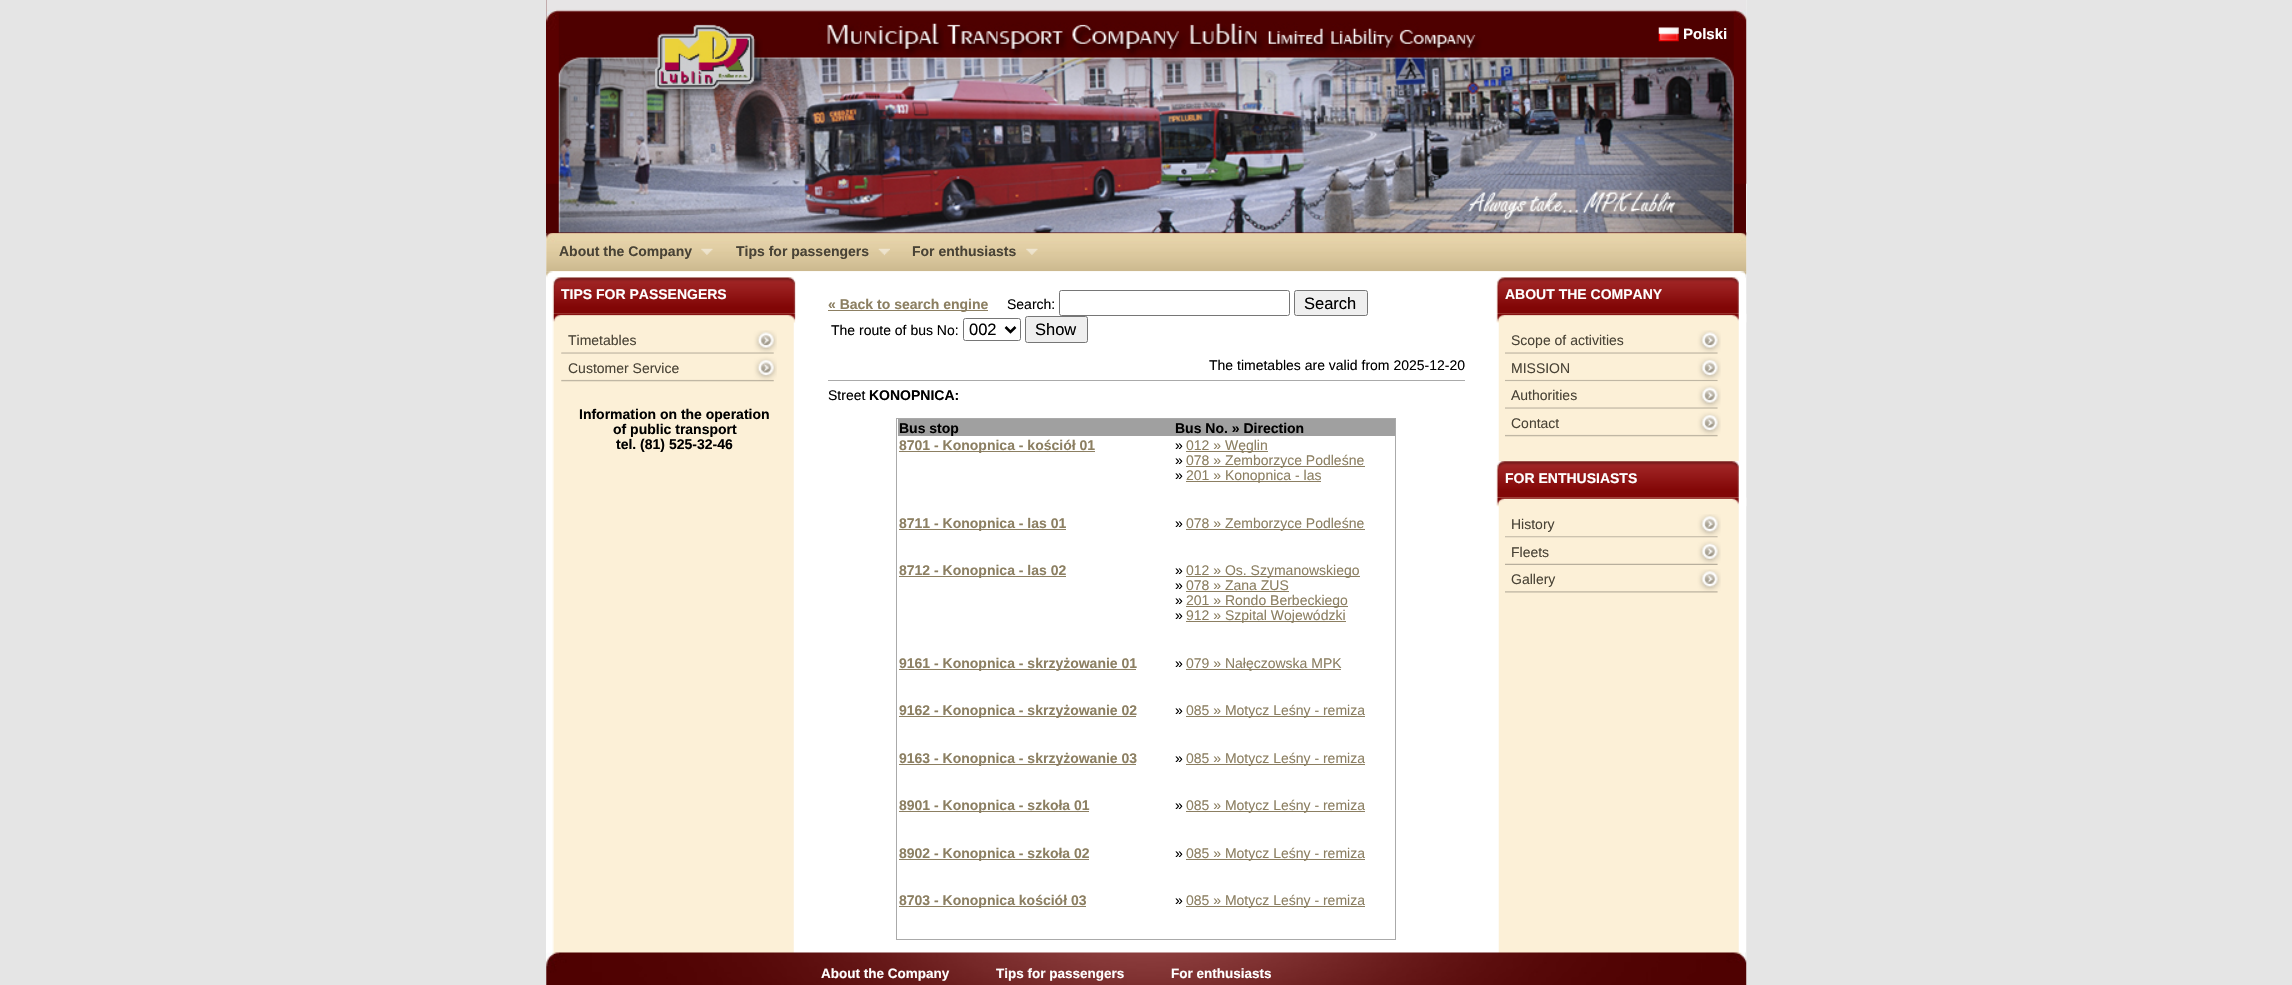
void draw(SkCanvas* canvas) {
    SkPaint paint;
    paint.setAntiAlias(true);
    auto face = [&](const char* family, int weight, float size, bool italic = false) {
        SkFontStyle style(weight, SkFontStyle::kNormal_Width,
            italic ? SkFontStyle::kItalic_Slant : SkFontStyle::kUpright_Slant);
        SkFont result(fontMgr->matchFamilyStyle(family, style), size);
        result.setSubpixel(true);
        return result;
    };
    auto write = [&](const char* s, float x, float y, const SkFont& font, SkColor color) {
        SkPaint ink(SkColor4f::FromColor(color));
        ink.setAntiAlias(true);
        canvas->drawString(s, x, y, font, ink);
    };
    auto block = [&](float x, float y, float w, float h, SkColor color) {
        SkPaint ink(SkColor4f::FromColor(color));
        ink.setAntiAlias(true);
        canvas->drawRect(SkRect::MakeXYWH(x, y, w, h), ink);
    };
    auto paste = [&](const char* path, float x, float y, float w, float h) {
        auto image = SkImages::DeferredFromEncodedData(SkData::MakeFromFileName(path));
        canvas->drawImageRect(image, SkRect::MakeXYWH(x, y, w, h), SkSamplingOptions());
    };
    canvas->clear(SkColorSetRGB(229, 229, 229));
    block(546, 233, 6, 752, SK_ColorWHITE);
    paste("pic1.png", 552, 0, 1195, 985);
    paste("pic5.png", 546, 232, 1201, 40);
    block(546, 0, 1200, 233, SkColorSetRGB(78, 0, 0));
    paste("pic2.png", 546, 0, 1201, 184);
    paste("pic3.png", 558, 12, 1176, 221);
    paste("pic4.png", 1658, 27, 21, 15);
    auto kFont1 = face("Liberation Sans", 700, 15);
    write("Polski", 1683, 39, kFont1, SK_ColorWHITE);
    auto kFont2 = face("Liberation Sans", 700, 14);
    write("About the Company", 559, 256, kFont2, SkColorSetRGB(73, 67, 54));
    paste("pic6.png", 701, 248, 12, 7);
    write("Tips for passengers", 736, 256, kFont2, SkColorSetRGB(73, 67, 54));
    paste("pic7.png", 878, 248, 12, 8);
    write("For enthusiasts", 912, 256, kFont2, SkColorSetRGB(73, 67, 54));
    paste("pic6.png", 1026, 248, 12, 7);
    paste("pic8.png", 546, 271, 1201, 7);
    paste("pic9.png", 552, 277, 244, 37);
    write("TIPS FOR PASSENGERS", 561, 299, kFont2, SK_ColorWHITE);
    paste("pic10.png", 552, 313, 244, 10);
    paste("pic11.png", 561, 330, 216, 24);
    auto kFont3 = face("Liberation Sans", 400, 14);
    write("Timetables", 568, 345, kFont3, SkColorSetRGB(73, 67, 54));
    paste("pic12.png", 561, 353, 216, 29);
    write("Customer Service", 568, 373, kFont3, SkColorSetRGB(73, 67, 54));
    write("Information on the operation", 579, 419, kFont2, SK_ColorBLACK);
    write("of public transport", 613, 434, kFont2, SK_ColorBLACK);
    write("tel. (81) 525-32-46", 616, 449, kFont2, SK_ColorBLACK);
    block(828, 310, 160, 1, SkColorSetRGB(140, 127, 98));
    write("« Back to search engine", 828, 309, kFont2, SkColorSetRGB(140, 127, 98));
    write("Search:", 1007, 309, kFont3, SK_ColorBLACK);
    paint.setStyle(SkPaint::kStroke_Style);
    paint.setStrokeWidth(1);
    paint.setColor(SkColorSetRGB(118, 118, 118));
    canvas->drawRoundRect(SkRect::MakeXYWH(1059.5f, 290.5f, 230, 25), 2, 2, paint);
    paint.setStyle(SkPaint::kFill_Style);
    paint.setColor(SkColorSetRGB(239, 239, 239));
    canvas->drawRoundRect(SkRect::MakeXYWH(1294.5f, 290.5f, 73, 25), 2, 2, paint);
    paint.setStyle(SkPaint::kStroke_Style);
    paint.setColor(SkColorSetRGB(118, 118, 118));
    canvas->drawRoundRect(SkRect::MakeXYWH(1294.5f, 290.5f, 73, 25), 2, 2, paint);
    auto kFont4 = face("Liberation Sans", 400, 16.5f);
    write("Search", 1304, 309, kFont4, SK_ColorBLACK);
    write("The route of bus No:", 831, 335, kFont3, SK_ColorBLACK);
    canvas->drawRoundRect(SkRect::MakeXYWH(963.5f, 318.5f, 57, 22), 2, 2, paint);
    paint.setStrokeWidth(2.5f);
    paint.setColor(SK_ColorBLACK);
    canvas->drawPath(SkPathBuilder().moveTo(1005.5f, 327).lineTo(1010.5f, 332).lineTo(1015.5f, 327).detach(), paint);
    write("002", 969, 335, kFont4, SK_ColorBLACK);
    paint.setStyle(SkPaint::kFill_Style);
    paint.setColor(SkColorSetRGB(239, 239, 239));
    canvas->drawRoundRect(SkRect::MakeXYWH(1025.5f, 316.5f, 62, 26), 2, 2, paint);
    paint.setStyle(SkPaint::kStroke_Style);
    paint.setStrokeWidth(1);
    paint.setColor(SkColorSetRGB(118, 118, 118));
    canvas->drawRoundRect(SkRect::MakeXYWH(1025.5f, 316.5f, 62, 26), 2, 2, paint);
    write("Show", 1035, 335, kFont4, SK_ColorBLACK);
    write("The timetables are valid from 2025-12-20", 1209, 370, kFont3, SK_ColorBLACK);
    block(828, 380, 637, 1, SkColorSetRGB(170, 170, 170));
    write("Street", 828, 400, kFont3, SK_ColorBLACK);
    write("KONOPNICA:", 869, 400, kFont2, SK_ColorBLACK);
    paint.setColor(SkColorSetRGB(170, 170, 170));
    canvas->drawRect(SkRect::MakeXYWH(896.5f, 418.5f, 499, 521), paint);
    block(898, 419, 497, 17, SkColorSetRGB(160, 160, 160));
    write("Bus stop", 899, 433, kFont2, SK_ColorBLACK);
    write("Bus No. » Direction", 1175, 433, kFont2, SK_ColorBLACK);
    block(899, 451, 196, 1, SkColorSetRGB(140, 127, 98));
    write("8701 - Konopnica - kościół 01", 899, 450, kFont2, SkColorSetRGB(140, 127, 98));
    write("»", 1175, 450, kFont3, SK_ColorBLACK);
    block(1186, 451, 82, 1, SkColorSetRGB(140, 127, 98));
    write("012 » Węglin", 1186, 450, kFont3, SkColorSetRGB(140, 127, 98));
    write("»", 1175, 465, kFont3, SK_ColorBLACK);
    block(1186, 466, 179, 1, SkColorSetRGB(140, 127, 98));
    write("078 » Zemborzyce Podleśne", 1186, 465, kFont3, SkColorSetRGB(140, 127, 98));
    write("»", 1175, 480, kFont3, SK_ColorBLACK);
    block(1186, 481, 135, 1, SkColorSetRGB(140, 127, 98));
    write("201 » Konopnica - las", 1186, 480, kFont3, SkColorSetRGB(140, 127, 98));
    block(899, 529, 167, 1, SkColorSetRGB(140, 127, 98));
    write("8711 - Konopnica - las 01", 899, 528, kFont2, SkColorSetRGB(140, 127, 98));
    write("»", 1175, 528, kFont3, SK_ColorBLACK);
    block(1186, 529, 179, 1, SkColorSetRGB(140, 127, 98));
    write("078 » Zemborzyce Podleśne", 1186, 528, kFont3, SkColorSetRGB(140, 127, 98));
    block(899, 576, 167, 1, SkColorSetRGB(140, 127, 98));
    write("8712 - Konopnica - las 02", 899, 575, kFont2, SkColorSetRGB(140, 127, 98));
    write("»", 1175, 575, kFont3, SK_ColorBLACK);
    block(1186, 576, 174, 1, SkColorSetRGB(140, 127, 98));
    write("012 » Os. Szymanowskiego", 1186, 575, kFont3, SkColorSetRGB(140, 127, 98));
    write("»", 1175, 590, kFont3, SK_ColorBLACK);
    write("078 » Zana ZUS", 1186, 590, kFont3, SkColorSetRGB(140, 127, 98));
    block(1186, 591, 103, 1, SkColorSetRGB(140, 127, 98));
    write("»", 1175, 605, kFont3, SK_ColorBLACK);
    block(1186, 606, 162, 1, SkColorSetRGB(140, 127, 98));
    write("201 » Rondo Berbeckiego", 1186, 605, kFont3, SkColorSetRGB(140, 127, 98));
    write("»", 1175, 620, kFont3, SK_ColorBLACK);
    block(1186, 621, 160, 1, SkColorSetRGB(140, 127, 98));
    write("912 » Szpital Wojewódzki", 1186, 620, kFont3, SkColorSetRGB(140, 127, 98));
    block(899, 669, 237, 1, SkColorSetRGB(140, 127, 98));
    write("9161 - Konopnica - skrzyżowanie 01", 899, 668, kFont2, SkColorSetRGB(140, 127, 98));
    write("»", 1175, 668, kFont3, SK_ColorBLACK);
    block(1186, 669, 155, 1, SkColorSetRGB(140, 127, 98));
    write("079 » Nałęczowska MPK", 1186, 668, kFont3, SkColorSetRGB(140, 127, 98));
    block(899, 716, 237, 1, SkColorSetRGB(140, 127, 98));
    write("9162 - Konopnica - skrzyżowanie 02", 899, 715, kFont2, SkColorSetRGB(140, 127, 98));
    write("»", 1175, 715, kFont3, SK_ColorBLACK);
    block(1186, 716, 179, 1, SkColorSetRGB(140, 127, 98));
    write("085 » Motycz Leśny - remiza", 1186, 715, kFont3, SkColorSetRGB(140, 127, 98));
    block(899, 764, 237, 1, SkColorSetRGB(140, 127, 98));
    write("9163 - Konopnica - skrzyżowanie 03", 899, 763, kFont2, SkColorSetRGB(140, 127, 98));
    write("»", 1175, 763, kFont3, SK_ColorBLACK);
    block(1186, 764, 179, 1, SkColorSetRGB(140, 127, 98));
    write("085 » Motycz Leśny - remiza", 1186, 763, kFont3, SkColorSetRGB(140, 127, 98));
    block(899, 811, 190, 1, SkColorSetRGB(140, 127, 98));
    write("8901 - Konopnica - szkoła 01", 899, 810, kFont2, SkColorSetRGB(140, 127, 98));
    write("»", 1175, 810, kFont3, SK_ColorBLACK);
    block(1186, 811, 179, 1, SkColorSetRGB(140, 127, 98));
    write("085 » Motycz Leśny - remiza", 1186, 810, kFont3, SkColorSetRGB(140, 127, 98));
    block(899, 859, 190, 1, SkColorSetRGB(140, 127, 98));
    write("8902 - Konopnica - szkoła 02", 899, 858, kFont2, SkColorSetRGB(140, 127, 98));
    write("»", 1175, 858, kFont3, SK_ColorBLACK);
    block(1186, 859, 179, 1, SkColorSetRGB(140, 127, 98));
    write("085 » Motycz Leśny - remiza", 1186, 858, kFont3, SkColorSetRGB(140, 127, 98));
    block(899, 906, 187, 1, SkColorSetRGB(140, 127, 98));
    write("8703 - Konopnica kościół 03", 899, 905, kFont2, SkColorSetRGB(140, 127, 98));
    write("»", 1175, 905, kFont3, SK_ColorBLACK);
    block(1186, 906, 179, 1, SkColorSetRGB(140, 127, 98));
    write("085 » Motycz Leśny - remiza", 1186, 905, kFont3, SkColorSetRGB(140, 127, 98));
    paste("pic13.png", 1496, 277, 243, 37);
    write("ABOUT THE COMPANY", 1505, 299, kFont2, SK_ColorWHITE);
    paste("pic14.png", 1496, 313, 251, 10);
    paste("pic15.png", 1505, 330, 216, 24);
    write("Scope of activities", 1511, 345, kFont3, SkColorSetRGB(73, 67, 54));
    paste("pic16.png", 1505, 353, 216, 29);
    write("MISSION", 1511, 373, kFont3, SkColorSetRGB(73, 67, 54));
    paste("pic17.png", 1505, 381, 216, 28);
    write("Authorities", 1511, 400, kFont3, SkColorSetRGB(73, 67, 54));
    paste("pic16.png", 1505, 408, 216, 29);
    write("Contact", 1511, 428, kFont3, SkColorSetRGB(73, 67, 54));
    paste("pic18.png", 1496, 461, 243, 37);
    write("FOR ENTHUSIASTS", 1505, 483, kFont2, SK_ColorWHITE);
    paste("pic19.png", 1496, 497, 251, 10);
    paste("pic20.png", 1505, 514, 216, 24);
    write("History", 1511, 529, kFont3, SkColorSetRGB(73, 67, 54));
    paste("pic21.png", 1505, 537, 216, 28);
    write("Fleets", 1511, 557, kFont3, SkColorSetRGB(73, 67, 54));
    paste("pic20.png", 1505, 569, 216, 24);
    write("Gallery", 1511, 584, kFont3, SkColorSetRGB(73, 67, 54));
    paste("pic22.png", 546, 952, 1201, 33);
    auto kFont5 = face("Liberation Sans", 700, 13.5f);
    write("About the Company", 821, 978, kFont5, SK_ColorWHITE);
    write("Tips for passengers", 996, 978, kFont5, SK_ColorWHITE);
    write("For enthusiasts", 1171, 978, kFont5, SK_ColorWHITE);
}
